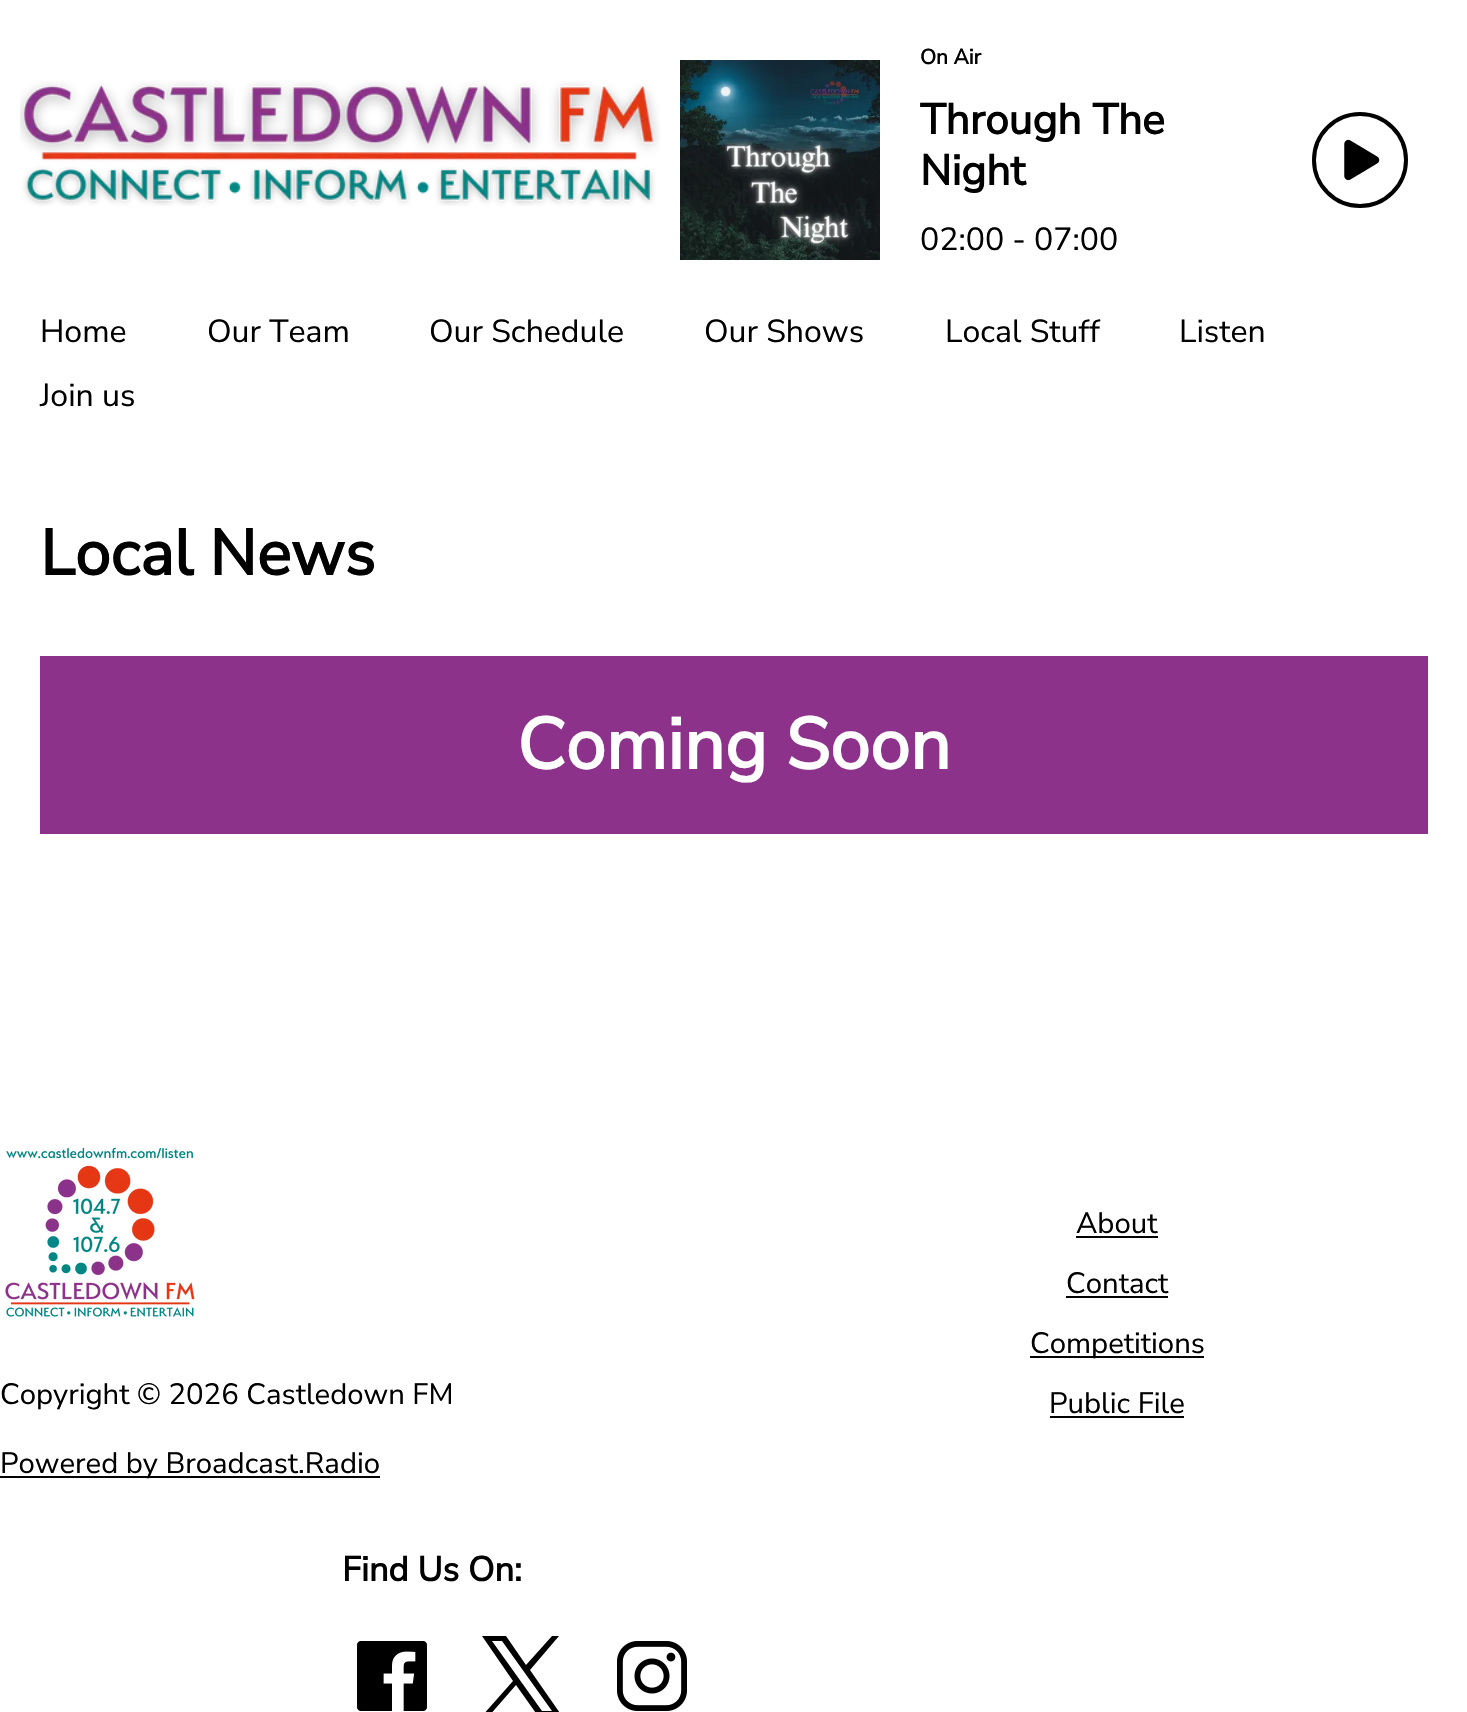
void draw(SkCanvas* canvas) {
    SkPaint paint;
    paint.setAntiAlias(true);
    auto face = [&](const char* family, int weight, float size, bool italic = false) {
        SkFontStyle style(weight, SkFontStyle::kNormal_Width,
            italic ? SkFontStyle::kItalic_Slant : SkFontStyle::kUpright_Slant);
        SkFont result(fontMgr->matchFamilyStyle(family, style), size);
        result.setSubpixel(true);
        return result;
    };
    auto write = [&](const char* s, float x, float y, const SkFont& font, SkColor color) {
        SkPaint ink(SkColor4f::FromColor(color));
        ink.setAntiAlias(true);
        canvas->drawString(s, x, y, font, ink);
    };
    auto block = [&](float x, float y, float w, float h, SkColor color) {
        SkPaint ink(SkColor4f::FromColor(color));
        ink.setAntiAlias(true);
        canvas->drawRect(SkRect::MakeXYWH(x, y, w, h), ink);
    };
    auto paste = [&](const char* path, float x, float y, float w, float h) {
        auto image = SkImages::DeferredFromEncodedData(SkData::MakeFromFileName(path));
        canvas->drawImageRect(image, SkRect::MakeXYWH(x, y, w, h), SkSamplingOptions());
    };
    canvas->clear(SK_ColorWHITE);
    paste("pic1.png", 20, 81, 640, 125);
    paste("pic2.png", 680, 60, 200, 200);
    auto kFont1 = face("Nunito Sans", 700, 21);
    write("On Air", 920, 64, kFont1, SK_ColorBLACK);
    auto kFont2 = face("Nunito Sans", 700, 42.5f);
    write("Through The", 920, 134, kFont2, SK_ColorBLACK);
    write("Night", 920, 185, kFont2, SK_ColorBLACK);
    auto kFont3 = face("Nunito Sans", 200, 32);
    write("02:00 - 07:00", 920, 250, kFont3, SK_ColorBLACK);
    paint.setStyle(SkPaint::kStroke_Style);
    paint.setStrokeWidth(4);
    paint.setColor(SK_ColorBLACK);
    canvas->drawCircle(1360, 160, 46, paint);
    paste("pic3.png", 1344, 139, 36, 42);
    write("Home", 40, 342, kFont3, SK_ColorBLACK);
    write("Our Team", 207, 342, kFont3, SK_ColorBLACK);
    write("Our Schedule", 429, 342, kFont3, SK_ColorBLACK);
    write("Our Shows", 704, 342, kFont3, SK_ColorBLACK);
    write("Local Stuff", 945, 342, kFont3, SK_ColorBLACK);
    write("Listen", 1179, 342, kFont3, SK_ColorBLACK);
    write("Join us", 40, 406, kFont3, SK_ColorBLACK);
    auto kFont4 = face("Nunito Sans", 700, 64);
    write("Local News", 40, 575, kFont4, SK_ColorBLACK);
    block(40, 656, 1388, 178, SkColorSetRGB(140, 50, 138));
    auto kFont5 = face("Nunito Sans", 700, 72);
    write("Coming Soon", 517, 769, kFont5, SK_ColorWHITE);
    auto kFont6 = face("Nunito Sans", 200, 29.3f);
    write("About", 1076, 1233, kFont6, SK_ColorBLACK);
    block(1076, 1236, 82, 2, SK_ColorBLACK);
    write("Contact", 1066, 1293, kFont6, SK_ColorBLACK);
    block(1066, 1296, 102, 2, SK_ColorBLACK);
    block(1030, 1356, 174, 2, SK_ColorBLACK);
    write("Competitions", 1030, 1353, kFont6, SK_ColorBLACK);
    write("Public File", 1049, 1413, kFont6, SK_ColorBLACK);
    block(1050, 1416, 134, 2, SK_ColorBLACK);
    paste("pic4.png", 5, 1147, 190, 170);
    write("Copyright © 2026 Castledown FM", 0, 1404, kFont6, SK_ColorBLACK);
    block(0, 1476, 380, 2, SK_ColorBLACK);
    write("Powered by Broadcast.Radio", 0, 1473, kFont6, SK_ColorBLACK);
    auto kFont7 = face("Nunito Sans", 700, 34.5f);
    write("Find Us On:", 342, 1581, kFont7, SK_ColorBLACK);
    paste("pic5.png", 357, 1641, 70, 70);
    paint.setStyle(SkPaint::kFill_Style);
    canvas->drawPath(SkPathBuilder().moveTo(530, 1670).lineTo(559, 1636).lineTo(552, 1636).lineTo(526, 1665).lineTo(506, 1636).lineTo(482, 1636).lineTo(513, 1681).lineTo(482, 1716).lineTo(489, 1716).lineTo(516, 1685).lineTo(538, 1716).lineTo(562, 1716).moveTo(492, 1641).lineTo(502, 1641).lineTo(552, 1711).lineTo(542, 1711).detach(), paint);
    paste("pic6.png", 617, 1641, 70, 70);
}
